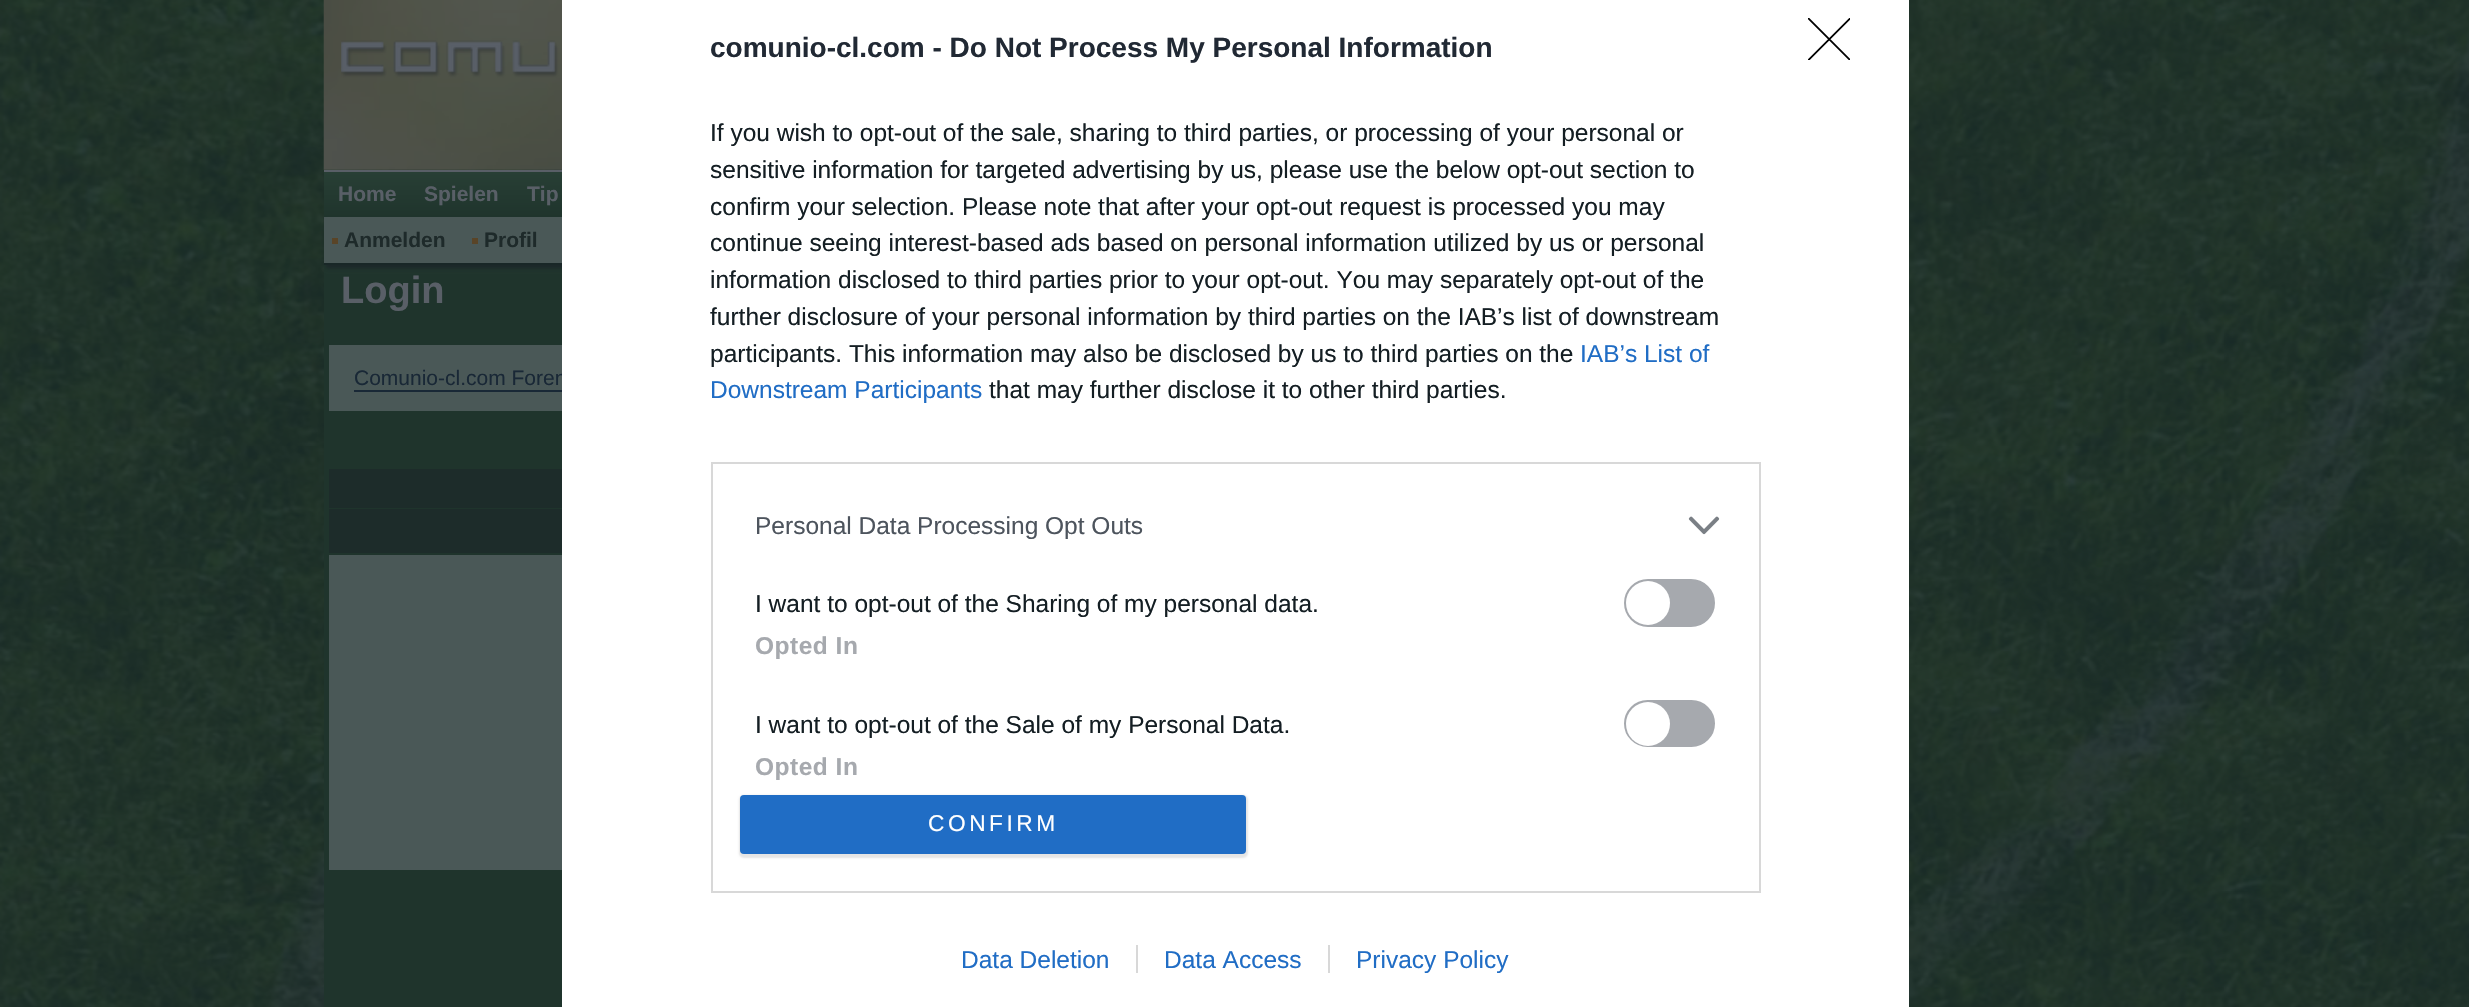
void draw(SkCanvas* canvas) {
    SkPaint paint;
    paint.setAntiAlias(true);
    auto face = [&](const char* family, int weight, float size, bool italic = false) {
        SkFontStyle style(weight, SkFontStyle::kNormal_Width,
            italic ? SkFontStyle::kItalic_Slant : SkFontStyle::kUpright_Slant);
        SkFont result(fontMgr->matchFamilyStyle(family, style), size);
        result.setSubpixel(true);
        return result;
    };
    auto write = [&](const char* s, float x, float y, const SkFont& font, SkColor color) {
        SkPaint ink(SkColor4f::FromColor(color));
        ink.setAntiAlias(true);
        canvas->drawString(s, x, y, font, ink);
    };
    auto writeSpaced = [&](const char* s, float x, float y, const SkFont& font, const SkPaint& ink, float letter, float word) {
        std::vector<SkGlyphID> glyphs(font.countText(s, strlen(s), SkTextEncoding::kUTF8));
        std::vector<float> xs(glyphs.size());
        font.textToGlyphs(s, strlen(s), SkTextEncoding::kUTF8, glyphs);
        font.getXPos(glyphs, xs, x);
        float extra = 0;
        for (size_t i = 0; i < glyphs.size(); i++) {
            xs[i] += extra;
            extra += letter + word * (glyphs[i] == font.unicharToGlyph(' '));
        }
        canvas->drawTextBlob(SkTextBlob::MakeFromPosHGlyphs(glyphs, xs, y, font), 0, 0, ink);
    };
    auto block = [&](float x, float y, float w, float h, SkColor color) {
        SkPaint ink(SkColor4f::FromColor(color));
        ink.setAntiAlias(true);
        canvas->drawRect(SkRect::MakeXYWH(x, y, w, h), ink);
    };
    auto card = [&](float x, float y, float w, float h, float radius, SkColor color) {
        SkPaint ink(SkColor4f::FromColor(color));
        ink.setAntiAlias(true);
        canvas->drawRoundRect(SkRect::MakeXYWH(x, y, w, h), radius, radius, ink);
    };
    auto paste = [&](const char* path, float x, float y, float w, float h) {
        auto image = SkImages::DeferredFromEncodedData(SkData::MakeFromFileName(path));
        canvas->drawImageRect(image, SkRect::MakeXYWH(x, y, w, h), SkSamplingOptions());
    };
    canvas->clear(SK_ColorWHITE);
    paste("pic1.png", 0, 0, 2469, 1007);
    paste("pic2.png", 323, 0, 239, 170);
    paste("pic3.png", 341, 40, 218, 38);
    block(324, 170, 238, 2, SkColorSetRGB(89, 95, 103));
    {
        const SkColor colors[] = {SkColorSetRGB(40, 63, 53), SkColorSetRGB(31, 52, 44)};
        const float stops[] = {0, 1};
        const SkPoint ends[] = {{324, 172}, {324, 217}};
        paint.setShader(SkGradientShader::MakeLinear(ends, colors, stops, 2, SkTileMode::kClamp));
        paint.setAlpha(255);
    }
    canvas->drawRect(SkRect::MakeXYWH(324, 172, 238, 45), paint);
    auto kFont1 = face("Liberation Sans", 700, 21);
    write("Home", 338, 201, kFont1, SkColorSetRGB(89, 95, 103));
    write("Spielen", 424, 201, kFont1, SkColorSetRGB(89, 95, 103));
    write("Tip", 527, 201, kFont1, SkColorSetRGB(89, 95, 103));
    block(324, 265, 238, 742, SkColorSetRGB(31, 52, 44));
    paste("pic4.png", 323, 217, 1, 8);
    paint.setShader(nullptr);
    paint.setColor(SkColorSetARGB(179, 25, 31, 39));
    paint.setMaskFilter(SkMaskFilter::MakeBlur(kNormal_SkBlurStyle, 2));
    canvas->drawRect(SkRect::MakeXYWH(326, 224, 1449, 44), paint);
    paint.setMaskFilter(nullptr);
    block(324, 217, 238, 46, SkColorSetRGB(74, 88, 87));
    block(324, 263, 238, 2, SkColorSetRGB(25, 39, 39));
    block(332, 238, 6, 6, SkColorSetRGB(89, 68, 39));
    write("Anmelden", 344, 247, kFont1, SkColorSetRGB(30, 42, 42));
    block(472, 238, 6, 6, SkColorSetRGB(89, 68, 39));
    write("Profil", 484, 247, kFont1, SkColorSetRGB(30, 42, 42));
    auto kFont2 = face("Liberation Sans", 700, 38);
    write("Login", 341, 303, kFont2, SkColorSetRGB(89, 95, 103));
    block(329, 345, 233, 66, SkColorSetRGB(74, 88, 87));
    auto kFont3 = face("Liberation Sans", 400, 21);
    write("Comunio-cl.com Foren", 354, 385, kFont3, SkColorSetRGB(25, 40, 54));
    block(354, 390, 208, 2, SkColorSetRGB(25, 40, 54));
    block(329, 469, 233, 39, SkColorSetRGB(29, 44, 42));
    block(329, 509, 233, 44, SkColorSetRGB(29, 44, 42));
    block(329, 555, 233, 315, SkColorSetRGB(74, 88, 87));
    block(562, 0, 1347, 1007, SK_ColorWHITE);
    auto kFont4 = face("Liberation Sans", 700, 28);
    write("comunio-cl.com - Do Not Process My Personal Information", 710, 57, kFont4, SkColorSetRGB(33, 41, 52));
    auto kFont5 = face("Liberation Sans", 400, 24.5f);
    write("If you wish to opt-out of the sale, sharing to third parties, or processing of your personal or", 710, 141, kFont5, SkColorSetRGB(20, 30, 35));
    canvas->save();
    canvas->clipRect(SkRect::MakeXYWH(711, 89, 1050, 347));
    write("sensitive information for targeted advertising by us, please use the below opt-out section to", 710, 178, kFont5, SkColorSetRGB(20, 30, 35));
    write("confirm your selection. Please note that after your opt-out request is processed you may", 710, 215, kFont5, SkColorSetRGB(20, 30, 35));
    write("continue seeing interest-based ads based on personal information utilized by us or personal", 710, 251, kFont5, SkColorSetRGB(20, 30, 35));
    canvas->restore();
    write("information disclosed to third parties prior to your opt-out. You may separately opt-out of the", 710, 288, kFont5, SkColorSetRGB(20, 30, 35));
    write("further disclosure of your personal information by third parties on the IAB’s list of downstream", 710, 325, kFont5, SkColorSetRGB(20, 30, 35));
    write("participants. This information may also be disclosed by us to third parties on the", 710, 362, kFont5, SkColorSetRGB(20, 30, 35));
    write("IAB’s List of", 1580, 362, kFont5, SkColorSetRGB(32, 109, 197));
    write("Downstream Participants", 710, 398, kFont5, SkColorSetRGB(32, 109, 197));
    write("that may further disclose it to other third parties.", 989, 398, kFont5, SkColorSetRGB(20, 30, 35));
    paint.setStyle(SkPaint::kStroke_Style);
    paint.setStrokeWidth(2);
    paint.setColor(SkColorSetRGB(216, 216, 216));
    canvas->drawRect(SkRect::MakeXYWH(712, 463, 1048, 429), paint);
    write("Personal Data Processing Opt Outs", 755, 534, kFont5, SkColorSetRGB(77, 84, 93));
    paste("pic5.png", 1688, 516, 32, 19);
    write("I want to opt-out of the Sharing of my personal data.", 755, 612, kFont5, SkColorSetRGB(20, 30, 35));
    paint.setStyle(SkPaint::kFill_Style);
    paint.setColor(SkColorSetRGB(166, 169, 174));
    canvas->drawRoundRect(SkRect::MakeXYWH(1625, 580, 89, 46), 23, 23, paint);
    paint.setStyle(SkPaint::kStroke_Style);
    canvas->drawRoundRect(SkRect::MakeXYWH(1625, 580, 89, 46), 23, 23, paint);
    paint.setStyle(SkPaint::kFill_Style);
    paint.setColor(SK_ColorWHITE);
    canvas->drawCircle(1648, 603, 22, paint);
    auto kFont6 = face("Liberation Sans", 700, 24.5f);
    paint.setColor(SkColorSetRGB(166, 169, 174));
    writeSpaced("Opted In", 755, 654, kFont6, paint, 0.5f, 0);
    write("I want to opt-out of the Sale of my Personal Data.", 755, 733, kFont5, SkColorSetRGB(20, 30, 35));
    canvas->drawRoundRect(SkRect::MakeXYWH(1625, 701, 89, 45), 22.5f, 22.5f, paint);
    paint.setStyle(SkPaint::kStroke_Style);
    canvas->drawRoundRect(SkRect::MakeXYWH(1625, 701, 89, 45), 22.5f, 22.5f, paint);
    paint.setStyle(SkPaint::kFill_Style);
    paint.setColor(SK_ColorWHITE);
    canvas->drawCircle(1648, 724, 22, paint);
    paint.setColor(SkColorSetRGB(166, 169, 174));
    writeSpaced("Opted In", 755, 775, kFont6, paint, 0.5f, 0);
    paint.setColor(SkColorSetARGB(26, 0, 0, 0));
    paint.setMaskFilter(SkMaskFilter::MakeBlur(kNormal_SkBlurStyle, 1));
    canvas->drawRoundRect(SkRect::MakeXYWH(739, 795, 509, 63), 5, 5, paint);
    paint.setMaskFilter(nullptr);
    card(740, 795, 506, 59, 4, SkColorSetRGB(32, 109, 197));
    auto kFont7 = face("Liberation Sans", 400, 22.75f);
    paint.setColor(SK_ColorWHITE);
    writeSpaced("CONFIRM", 928, 831, kFont7, paint, 3.5f, 0);
    canvas->save();
    canvas->clipRect(SkRect::MakeXYWH(1808, 18, 42, 42));
    paint.setStyle(SkPaint::kStroke_Style);
    paint.setStrokeWidth(1.8f);
    paint.setStrokeCap(SkPaint::kRound_Cap);
    paint.setStrokeJoin(SkPaint::kRound_Join);
    paint.setColor(SK_ColorBLACK);
    canvas->drawPath(SkPathBuilder().moveTo(1808.5f, 18.5f).lineTo(1850, 60).moveTo(1850, 18.5f).lineTo(1808.5f, 60).detach(), paint);
    canvas->restore();
    write("Data Deletion", 961, 968, kFont5, SkColorSetRGB(32, 109, 197));
    write("Data Access", 1164, 968, kFont5, SkColorSetRGB(32, 109, 197));
    block(1136, 945, 2, 28, SkColorSetRGB(216, 216, 216));
    write("Privacy Policy", 1356, 968, kFont5, SkColorSetRGB(32, 109, 197));
    block(1328, 945, 2, 28, SkColorSetRGB(216, 216, 216));
}
